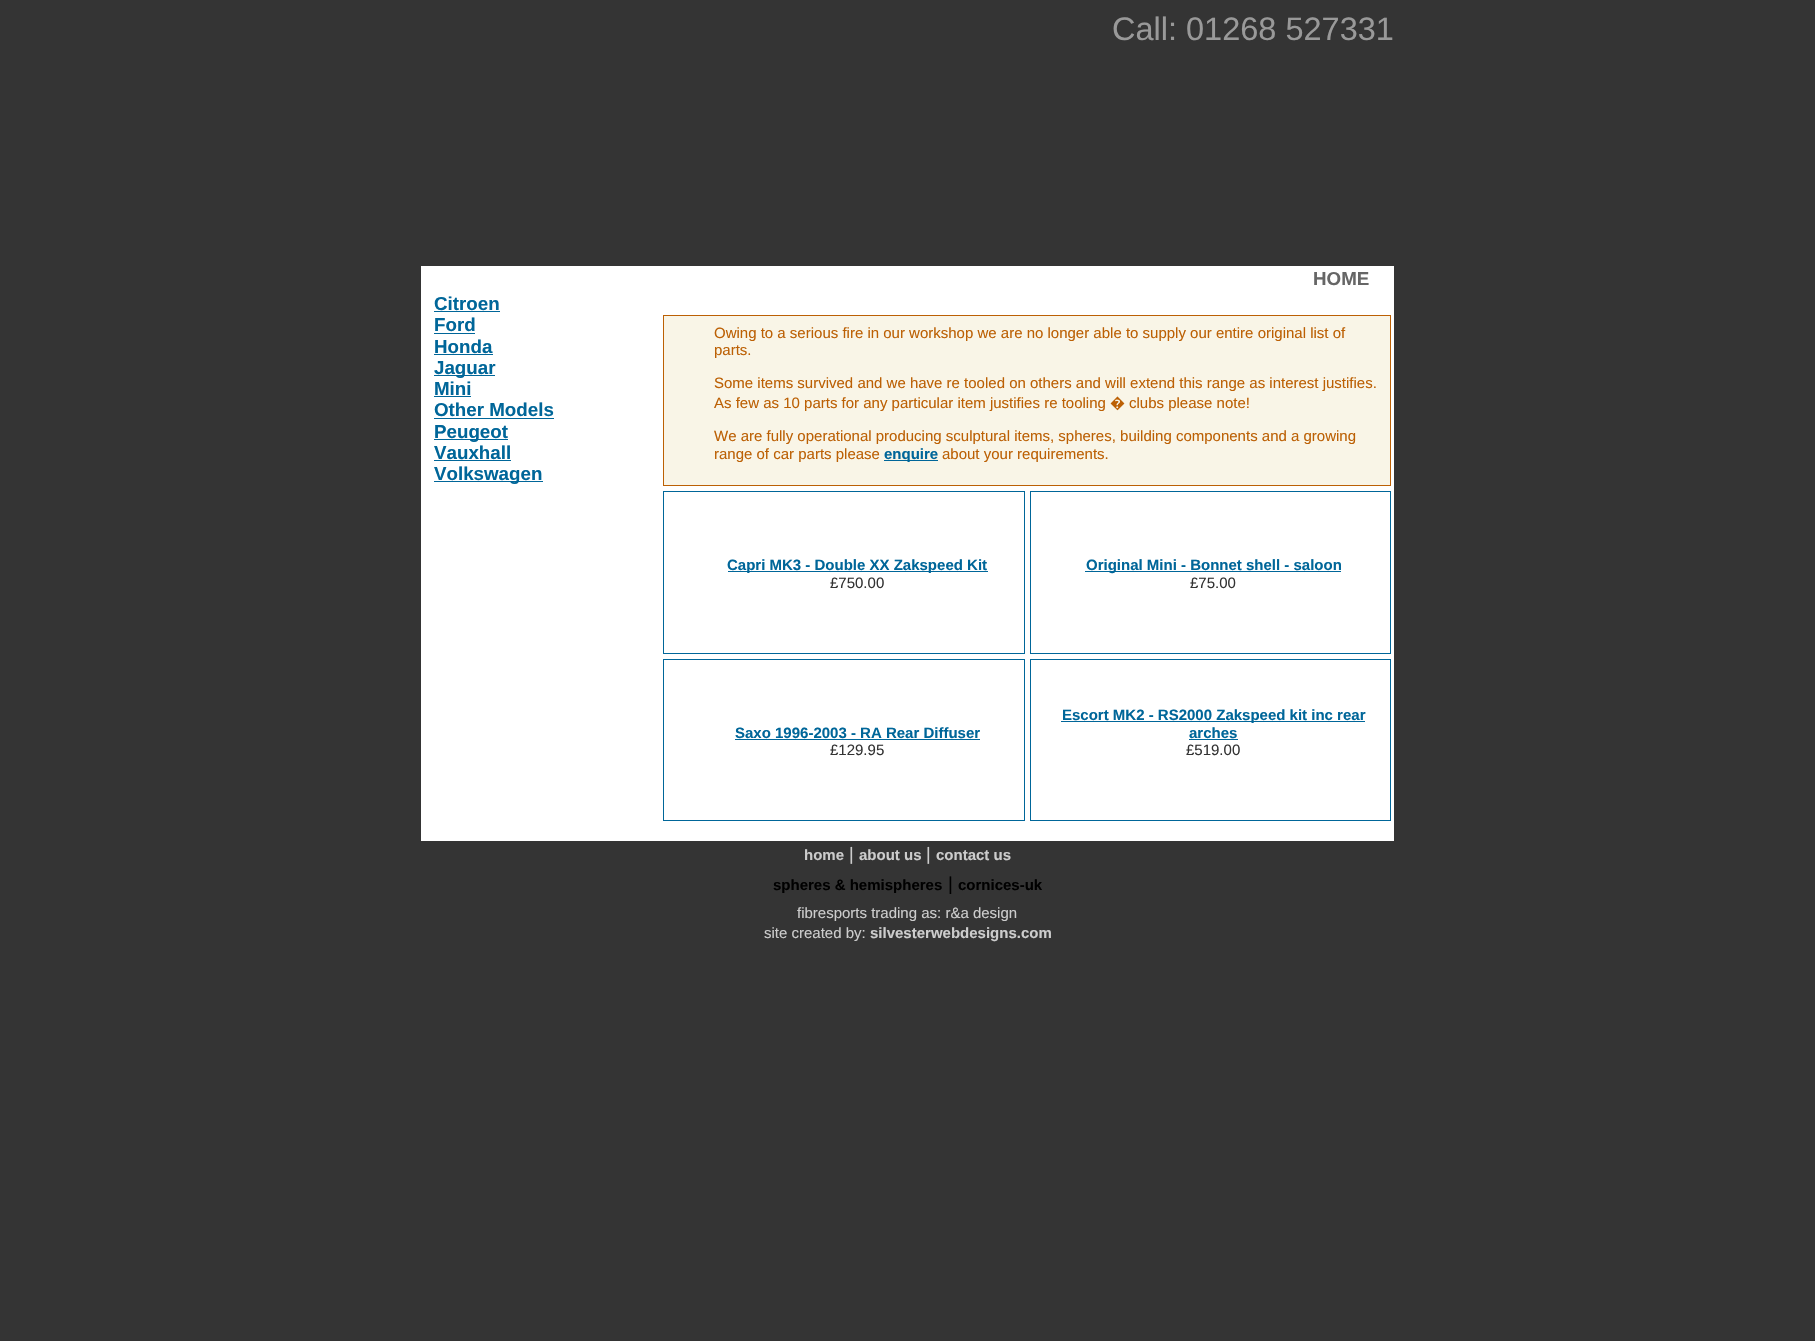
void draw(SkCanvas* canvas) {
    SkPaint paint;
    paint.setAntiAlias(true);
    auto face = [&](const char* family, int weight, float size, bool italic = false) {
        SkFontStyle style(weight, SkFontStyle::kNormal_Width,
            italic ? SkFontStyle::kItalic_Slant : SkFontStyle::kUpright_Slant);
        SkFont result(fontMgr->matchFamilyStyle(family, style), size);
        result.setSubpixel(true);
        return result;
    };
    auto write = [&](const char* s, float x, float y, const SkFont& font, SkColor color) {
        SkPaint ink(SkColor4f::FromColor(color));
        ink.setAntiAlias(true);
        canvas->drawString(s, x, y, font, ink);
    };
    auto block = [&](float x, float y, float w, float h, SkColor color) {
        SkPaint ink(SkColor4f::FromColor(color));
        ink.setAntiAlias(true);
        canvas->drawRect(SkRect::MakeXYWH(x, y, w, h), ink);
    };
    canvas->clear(SkColorSetRGB(52, 52, 52));
    auto kFont1 = face("Liberation Sans", 400, 32.5f);
    write("Call: 01268 527331", 1112, 40, kFont1, SkColorSetRGB(153, 153, 153));
    block(421, 266, 973, 575, SK_ColorWHITE);
    auto kFont2 = face("Liberation Sans", 700, 18.75f);
    write("HOME", 1313, 285, kFont2, SkColorSetRGB(102, 102, 102));
    write("Citroen", 434, 310, kFont2, SkColorSetRGB(0, 102, 153));
    block(434, 311, 66, 1, SkColorSetRGB(0, 102, 153));
    write("Ford", 434, 331, kFont2, SkColorSetRGB(0, 102, 153));
    block(434, 333, 41, 1, SkColorSetRGB(0, 102, 153));
    write("Honda", 434, 353, kFont2, SkColorSetRGB(0, 102, 153));
    block(434, 354, 59, 1, SkColorSetRGB(0, 102, 153));
    block(434, 375, 61, 1, SkColorSetRGB(0, 102, 153));
    write("Jaguar", 434, 374, kFont2, SkColorSetRGB(0, 102, 153));
    write("Mini", 434, 395, kFont2, SkColorSetRGB(0, 102, 153));
    block(434, 396, 37, 1, SkColorSetRGB(0, 102, 153));
    write("Other Models", 434, 416, kFont2, SkColorSetRGB(0, 102, 153));
    block(434, 418, 120, 1, SkColorSetRGB(0, 102, 153));
    block(434, 439, 74, 1, SkColorSetRGB(0, 102, 153));
    write("Peugeot", 434, 438, kFont2, SkColorSetRGB(0, 102, 153));
    write("Vauxhall", 434, 459, kFont2, SkColorSetRGB(0, 102, 153));
    block(434, 460, 77, 1, SkColorSetRGB(0, 102, 153));
    block(434, 481, 109, 1, SkColorSetRGB(0, 102, 153));
    write("Volkswagen", 434, 480, kFont2, SkColorSetRGB(0, 102, 153));
    paint.setColor(SkColorSetRGB(249, 245, 231));
    canvas->drawRect(SkRect::MakeXYWH(663.5f, 315.5f, 727, 170), paint);
    paint.setStyle(SkPaint::kStroke_Style);
    paint.setStrokeWidth(1);
    paint.setColor(SkColorSetRGB(188, 96, 4));
    canvas->drawRect(SkRect::MakeXYWH(663.5f, 315.5f, 727, 170), paint);
    auto kFont3 = face("Liberation Sans", 400, 15);
    write("Owing to a serious fire in our workshop we are no longer able to supply our entire original list of", 714, 338, kFont3, SkColorSetRGB(188, 96, 4));
    write("parts.", 714, 355, kFont3, SkColorSetRGB(188, 96, 4));
    write("Some items survived and we have re tooled on others and will extend this range as interest justifies.", 714, 388, kFont3, SkColorSetRGB(188, 96, 4));
    write("As few as 10 parts for any particular item justifies re tooling", 714, 408, kFont3, SkColorSetRGB(188, 96, 4));
    auto kFont4 = face("Noto Sans", 400, 15);
    write("�", 1110, 408, kFont4, SkColorSetRGB(188, 96, 4));
    write("clubs please note!", 1129, 408, kFont3, SkColorSetRGB(188, 96, 4));
    write("We are fully operational producing sculptural items, spheres, building components and a growing", 714, 441, kFont3, SkColorSetRGB(188, 96, 4));
    write("range of car parts please", 714, 459, kFont3, SkColorSetRGB(188, 96, 4));
    block(884, 460, 54, 1, SkColorSetRGB(0, 102, 153));
    auto kFont5 = face("Liberation Sans", 700, 15);
    write("enquire", 884, 459, kFont5, SkColorSetRGB(0, 102, 153));
    write("about your requirements.", 942, 459, kFont3, SkColorSetRGB(188, 96, 4));
    paint.setColor(SkColorSetRGB(0, 102, 153));
    canvas->drawRect(SkRect::MakeXYWH(663.5f, 491.5f, 361, 162), paint);
    block(728, 571, 260, 1, SkColorSetRGB(0, 102, 153));
    write("Capri MK3 - Double XX Zakspeed Kit", 727, 570, kFont5, SkColorSetRGB(0, 102, 153));
    write("£750.00", 830, 588, kFont3, SkColorSetRGB(51, 51, 51));
    canvas->drawRect(SkRect::MakeXYWH(1030.5f, 491.5f, 360, 162), paint);
    block(1085, 571, 256, 1, SkColorSetRGB(0, 102, 153));
    write("Original Mini - Bonnet shell - saloon", 1086, 570, kFont5, SkColorSetRGB(0, 102, 153));
    write("£75.00", 1190, 588, kFont3, SkColorSetRGB(51, 51, 51));
    canvas->drawRect(SkRect::MakeXYWH(663.5f, 659.5f, 361, 161), paint);
    write("Saxo 1996-2003 - RA Rear Diffuser", 735, 738, kFont5, SkColorSetRGB(0, 102, 153));
    block(735, 739, 245, 1, SkColorSetRGB(0, 102, 153));
    write("£129.95", 830, 755, kFont3, SkColorSetRGB(51, 51, 51));
    canvas->drawRect(SkRect::MakeXYWH(1030.5f, 659.5f, 360, 161), paint);
    block(1061, 721, 304, 1, SkColorSetRGB(0, 102, 153));
    write("Escort MK2 - RS2000 Zakspeed kit inc rear", 1062, 720, kFont5, SkColorSetRGB(0, 102, 153));
    write("arches", 1189, 738, kFont5, SkColorSetRGB(0, 102, 153));
    block(1189, 739, 49, 1, SkColorSetRGB(0, 102, 153));
    write("£519.00", 1186, 755, kFont3, SkColorSetRGB(51, 51, 51));
    write("home", 804, 860, kFont5, SkColorSetRGB(204, 204, 204));
    auto kFont6 = face("Liberation Sans", 400, 18);
    write("|", 849, 860, kFont6, SkColorSetRGB(204, 204, 204));
    write("about us", 859, 860, kFont5, SkColorSetRGB(204, 204, 204));
    write("|", 926, 860, kFont6, SkColorSetRGB(204, 204, 204));
    write("contact us", 936, 860, kFont5, SkColorSetRGB(204, 204, 204));
    write("spheres & hemispheres", 773, 890, kFont5, SK_ColorBLACK);
    auto kFont7 = face("Liberation Sans", 400, 18.75f);
    write("|", 948, 890, kFont7, SK_ColorBLACK);
    write("cornices-uk", 958, 890, kFont5, SK_ColorBLACK);
    write("fibresports trading as: r&a design", 797, 918, kFont3, SkColorSetRGB(204, 204, 204));
    write("site created by:", 764, 938, kFont3, SkColorSetRGB(204, 204, 204));
    write("silvesterwebdesigns.com", 870, 938, kFont5, SkColorSetRGB(204, 204, 204));
}
